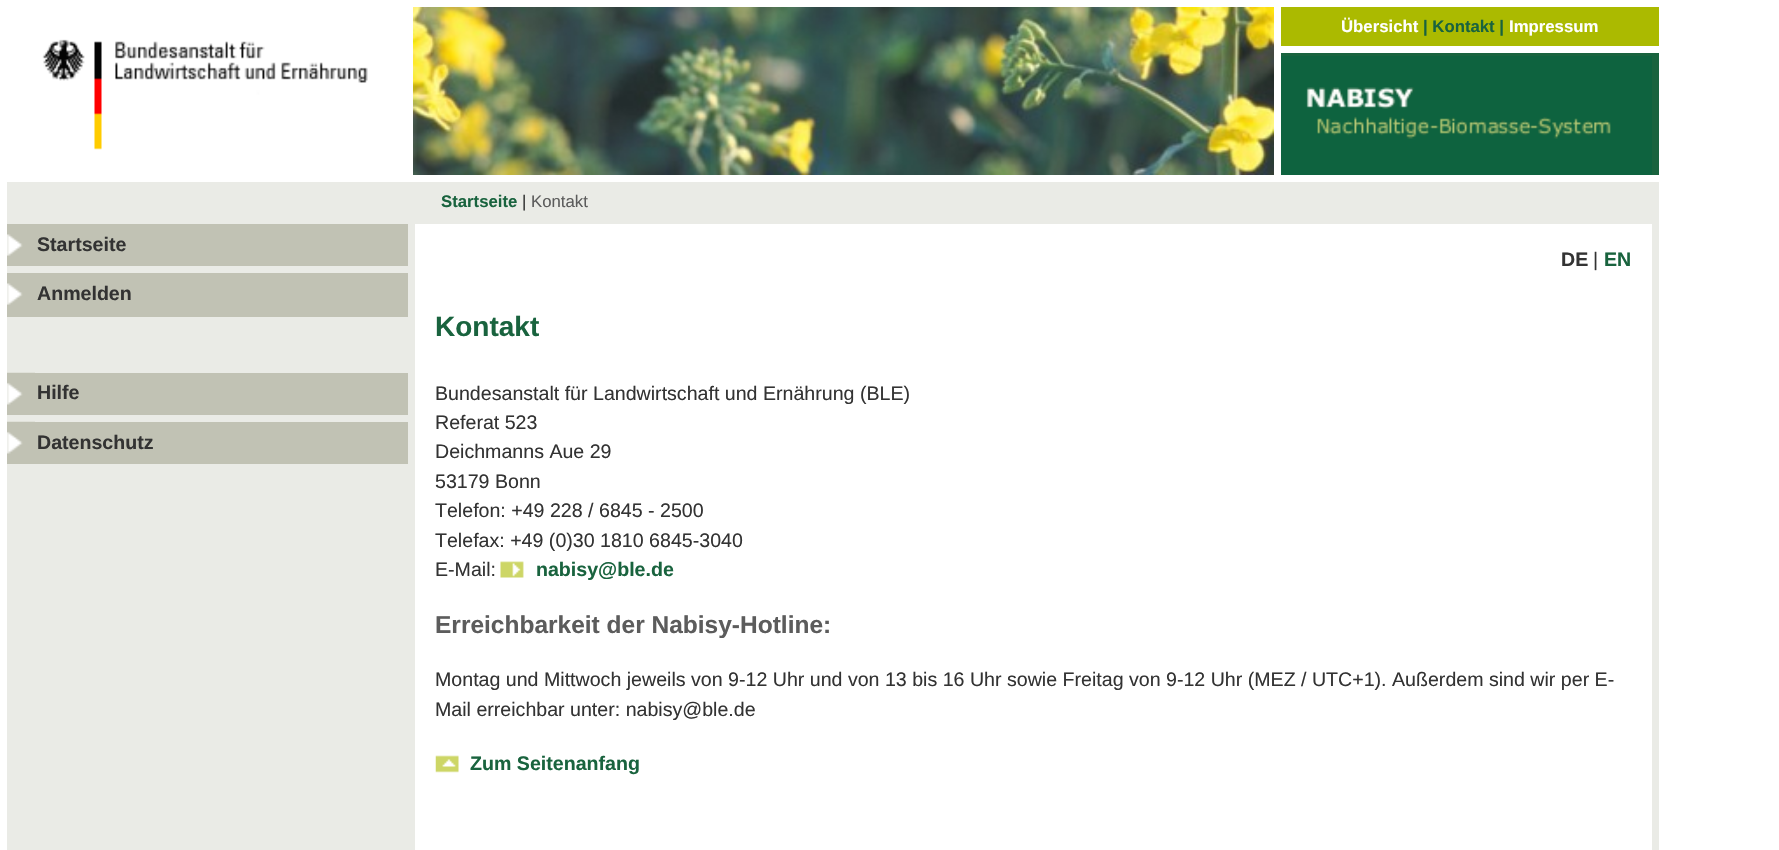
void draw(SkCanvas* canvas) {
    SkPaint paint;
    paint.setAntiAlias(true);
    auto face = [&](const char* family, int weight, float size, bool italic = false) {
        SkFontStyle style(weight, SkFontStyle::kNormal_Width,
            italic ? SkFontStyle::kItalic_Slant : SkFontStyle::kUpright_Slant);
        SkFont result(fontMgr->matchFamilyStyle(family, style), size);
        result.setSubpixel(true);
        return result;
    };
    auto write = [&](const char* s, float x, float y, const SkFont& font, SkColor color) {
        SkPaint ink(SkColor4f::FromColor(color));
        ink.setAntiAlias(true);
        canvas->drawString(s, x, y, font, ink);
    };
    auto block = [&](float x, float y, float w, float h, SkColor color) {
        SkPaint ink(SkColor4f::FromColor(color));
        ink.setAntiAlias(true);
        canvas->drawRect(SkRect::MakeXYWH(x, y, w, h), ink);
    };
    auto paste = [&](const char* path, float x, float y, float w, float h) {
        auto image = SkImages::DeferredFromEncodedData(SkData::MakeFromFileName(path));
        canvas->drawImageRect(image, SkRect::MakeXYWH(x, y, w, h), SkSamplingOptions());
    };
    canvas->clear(SK_ColorWHITE);
    paste("pic1.png", 413, 7, 861, 168);
    block(1281, 7, 378, 39, SkColorSetRGB(171, 186, 0));
    auto kFont1 = face("Liberation Sans", 700, 16.75f);
    write("Übersicht", 1341, 32, kFont1, SK_ColorWHITE);
    write("| Kontakt |", 1423, 32, kFont1, SkColorSetRGB(25, 99, 62));
    write("Impressum", 1509, 32, kFont1, SK_ColorWHITE);
    block(1281, 53, 378, 122, SkColorSetRGB(25, 99, 62));
    paste("pic2.png", 1281, 56, 371, 119);
    paste("pic3.png", 42, 39, 326, 111);
    block(7, 182, 1652, 668, SkColorSetRGB(234, 235, 230));
    write("Startseite", 441, 207, kFont1, SkColorSetRGB(25, 99, 62));
    auto kFont2 = face("Liberation Sans", 400, 16.75f);
    write("|", 522, 207, kFont2, SkColorSetRGB(51, 51, 51));
    write("Kontakt", 531, 207, kFont2, SkColorSetRGB(92, 92, 92));
    block(7, 224, 401, 42, SkColorSetRGB(193, 194, 180));
    paste("pic4.png", 7, 234, 16, 22);
    auto kFont3 = face("Liberation Sans", 700, 19.6f);
    write("Startseite", 37, 251, kFont3, SkColorSetRGB(51, 51, 51));
    block(7, 273, 401, 44, SkColorSetRGB(193, 194, 180));
    paste("pic4.png", 7, 283, 16, 22);
    write("Anmelden", 37, 300, kFont3, SkColorSetRGB(51, 51, 51));
    block(7, 373, 401, 42, SkColorSetRGB(193, 194, 180));
    paste("pic5.png", 7, 372, 28, 33);
    write("Hilfe", 37, 399, kFont3, SkColorSetRGB(51, 51, 51));
    block(7, 422, 401, 42, SkColorSetRGB(193, 194, 180));
    paste("pic5.png", 7, 421, 28, 33);
    write("Datenschutz", 37, 449, kFont3, SkColorSetRGB(51, 51, 51));
    block(415, 224, 1237, 626, SK_ColorWHITE);
    write("DE", 1561, 266, kFont3, SkColorSetRGB(51, 51, 51));
    auto kFont4 = face("Liberation Sans", 400, 19.6f);
    write("|", 1593, 266, kFont4, SkColorSetRGB(51, 51, 51));
    write("EN", 1604, 266, kFont3, SkColorSetRGB(25, 99, 62));
    auto kFont5 = face("Liberation Sans", 700, 28);
    write("Kontakt", 435, 336, kFont5, SkColorSetRGB(25, 99, 62));
    write("Bundesanstalt für Landwirtschaft und Ernährung (BLE)", 435, 400, kFont4, SkColorSetRGB(51, 51, 51));
    write("Referat 523", 435, 429, kFont4, SkColorSetRGB(51, 51, 51));
    write("Deichmanns Aue 29", 435, 458, kFont4, SkColorSetRGB(51, 51, 51));
    write("53179 Bonn", 435, 488, kFont4, SkColorSetRGB(51, 51, 51));
    write("Telefon: +49 228 / 6845 - 2500", 435, 517, kFont4, SkColorSetRGB(51, 51, 51));
    write("Telefax: +49 (0)30 1810 6845-3040", 435, 547, kFont4, SkColorSetRGB(51, 51, 51));
    write("E-Mail:", 435, 576, kFont4, SkColorSetRGB(51, 51, 51));
    paste("pic6.png", 500, 561, 24, 17);
    write("nabisy@ble.de", 536, 576, kFont3, SkColorSetRGB(25, 99, 62));
    auto kFont6 = face("Liberation Sans", 700, 24.5f);
    write("Erreichbarkeit der Nabisy-Hotline:", 435, 633, kFont6, SkColorSetRGB(92, 92, 92));
    write("Montag und Mittwoch jeweils von 9-12 Uhr und von 13 bis 16 Uhr sowie Freitag von 9-12 Uhr (MEZ / UTC+1). Außerdem sind wir per E-", 435, 686, kFont4, SkColorSetRGB(51, 51, 51));
    write("Mail erreichbar unter: nabisy@ble.de", 435, 716, kFont4, SkColorSetRGB(51, 51, 51));
    paste("pic7.png", 435, 755, 24, 18);
    write("Zum Seitenanfang", 470, 770, kFont3, SkColorSetRGB(25, 99, 62));
}
